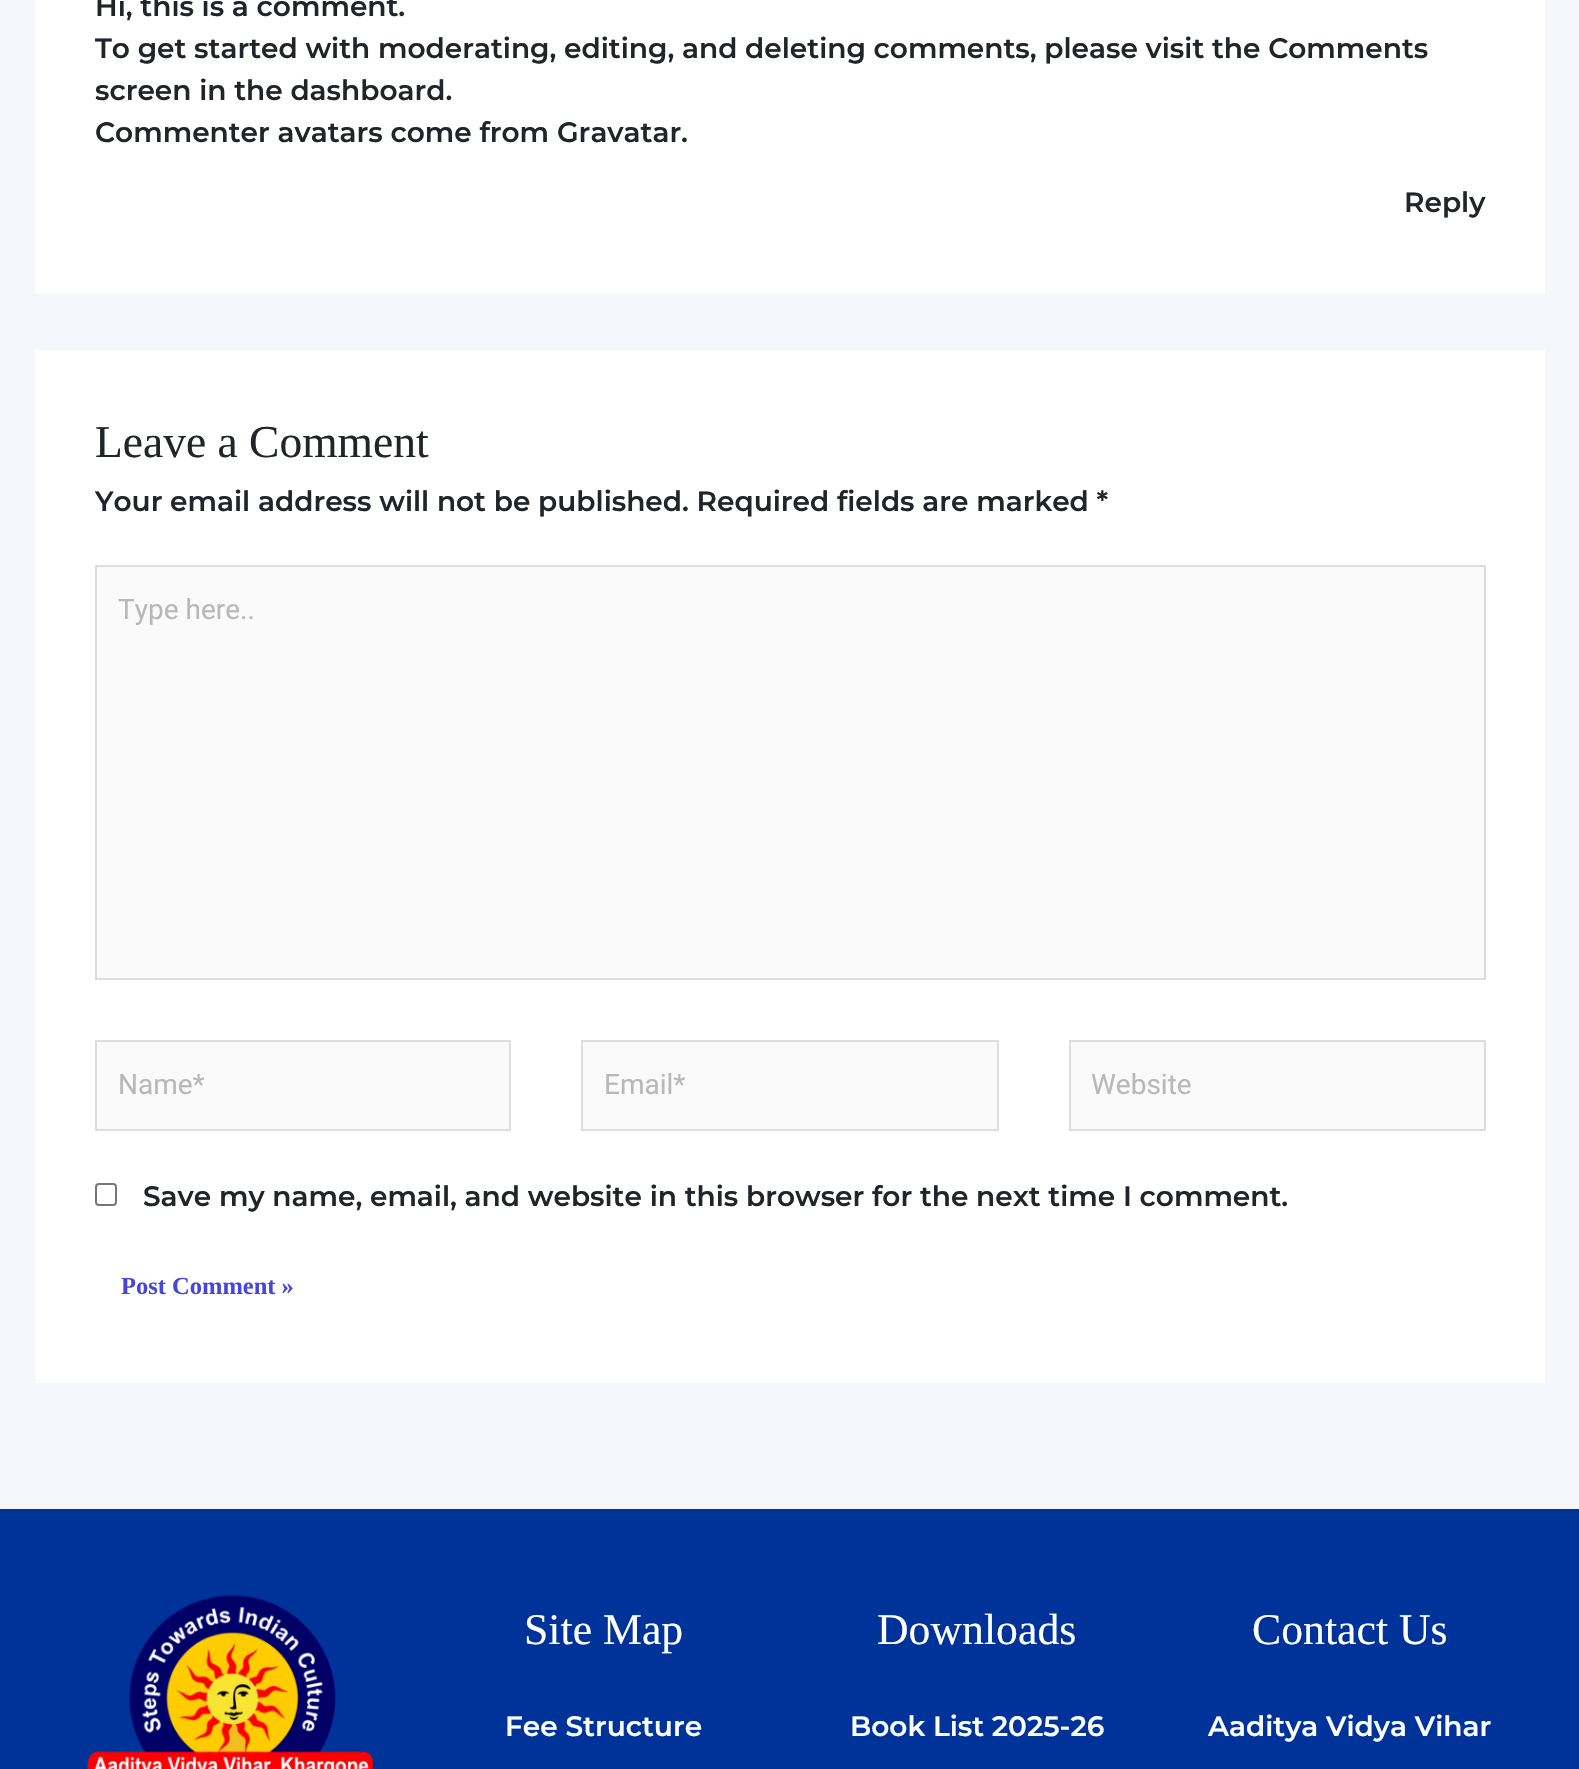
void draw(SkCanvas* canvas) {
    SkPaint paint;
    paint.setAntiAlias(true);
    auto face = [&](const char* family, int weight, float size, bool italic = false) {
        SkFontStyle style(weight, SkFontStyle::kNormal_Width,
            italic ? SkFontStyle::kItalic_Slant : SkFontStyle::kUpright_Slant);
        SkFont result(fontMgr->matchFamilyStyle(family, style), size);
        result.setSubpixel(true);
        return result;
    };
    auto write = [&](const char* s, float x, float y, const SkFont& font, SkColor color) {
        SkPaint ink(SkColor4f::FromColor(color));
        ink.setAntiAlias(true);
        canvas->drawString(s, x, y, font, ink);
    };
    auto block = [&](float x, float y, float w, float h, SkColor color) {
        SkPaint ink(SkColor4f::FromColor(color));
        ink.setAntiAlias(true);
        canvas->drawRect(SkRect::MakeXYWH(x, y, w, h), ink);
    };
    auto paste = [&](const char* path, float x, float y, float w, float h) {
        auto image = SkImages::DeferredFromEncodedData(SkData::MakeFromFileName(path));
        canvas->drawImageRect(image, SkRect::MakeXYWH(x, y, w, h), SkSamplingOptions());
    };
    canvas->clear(SkColorSetRGB(246, 247, 253));
    block(35, 0, 1510, 294, SK_ColorWHITE);
    auto kFont1 = face("Montserrat", 100, 28);
    write("Hi, this is a comment.", 95, 16, kFont1, SkColorSetRGB(33, 37, 41));
    write("To get started with moderating, editing, and deleting comments, please visit the Comments", 95, 58, kFont1, SkColorSetRGB(33, 37, 41));
    write("screen in the dashboard.", 95, 100, kFont1, SkColorSetRGB(33, 37, 41));
    write("Commenter avatars come from", 95, 142, kFont1, SkColorSetRGB(33, 37, 41));
    write("Gravatar", 557, 142, kFont1, SkColorSetRGB(33, 37, 41));
    write(".", 681, 142, kFont1, SkColorSetRGB(33, 37, 41));
    write("Reply", 1404, 212, kFont1, SkColorSetRGB(33, 37, 41));
    block(35, 350, 1510, 1033, SK_ColorWHITE);
    auto kFont2 = face("Liberation Serif", 400, 45.5f);
    write("Leave a Comment", 95, 457, kFont2, SkColorSetRGB(33, 37, 41));
    write("Your email address will not be published. Required fields are marked *", 95, 511, kFont1, SkColorSetRGB(33, 37, 41));
    paint.setColor(SkColorSetRGB(250, 250, 250));
    canvas->drawRect(SkRect::MakeXYWH(96, 566, 1389, 413), paint);
    paint.setStyle(SkPaint::kStroke_Style);
    paint.setStrokeWidth(2);
    paint.setColor(SkColorSetRGB(221, 221, 221));
    canvas->drawRect(SkRect::MakeXYWH(96, 566, 1389, 413), paint);
    auto kFont3 = face("Roboto", 400, 28);
    write("Type here..", 118, 619, kFont3, SkColorSetRGB(184, 184, 184));
    paint.setStyle(SkPaint::kFill_Style);
    paint.setColor(SkColorSetRGB(250, 250, 250));
    canvas->drawRect(SkRect::MakeXYWH(96, 1041, 414, 89), paint);
    paint.setStyle(SkPaint::kStroke_Style);
    paint.setColor(SkColorSetRGB(221, 221, 221));
    canvas->drawRect(SkRect::MakeXYWH(96, 1041, 414, 89), paint);
    write("Name*", 118, 1094, kFont3, SkColorSetRGB(184, 184, 184));
    paint.setStyle(SkPaint::kFill_Style);
    paint.setColor(SkColorSetRGB(250, 250, 250));
    canvas->drawRect(SkRect::MakeXYWH(582, 1041, 416, 89), paint);
    paint.setStyle(SkPaint::kStroke_Style);
    paint.setColor(SkColorSetRGB(221, 221, 221));
    canvas->drawRect(SkRect::MakeXYWH(582, 1041, 416, 89), paint);
    write("Email*", 604, 1094, kFont3, SkColorSetRGB(184, 184, 184));
    paint.setStyle(SkPaint::kFill_Style);
    paint.setColor(SkColorSetRGB(250, 250, 250));
    canvas->drawRect(SkRect::MakeXYWH(1070, 1041, 415, 89), paint);
    paint.setStyle(SkPaint::kStroke_Style);
    paint.setColor(SkColorSetRGB(221, 221, 221));
    canvas->drawRect(SkRect::MakeXYWH(1070, 1041, 415, 89), paint);
    write("Website", 1091, 1094, kFont3, SkColorSetRGB(184, 184, 184));
    paint.setColor(SkColorSetRGB(118, 118, 118));
    canvas->drawRoundRect(SkRect::MakeXYWH(96, 1184, 20, 21), 3, 3, paint);
    write("Save my name, email, and website in this browser for the next time I comment.", 143, 1206, kFont1, SkColorSetRGB(33, 37, 41));
    auto kFont4 = face("Liberation Serif", 700, 24.5f);
    write("Post Comment »", 121, 1294, kFont4, SkColorSetRGB(71, 71, 215));
    block(0, 1509, 1579, 260, SkColorSetRGB(0, 51, 153));
    paste("pic1.png", 87, 1595, 286, 174);
    auto kFont5 = face("Liberation Serif", 400, 43.75f);
    write("Site Map", 524, 1644, kFont5, SK_ColorWHITE);
    write("Fee Structure", 505, 1736, kFont1, SK_ColorWHITE);
    write("Downloads", 877, 1644, kFont5, SK_ColorWHITE);
    write("Book List 2025-26", 850, 1736, kFont1, SK_ColorWHITE);
    write("Contact Us", 1252, 1644, kFont5, SK_ColorWHITE);
    write("Aaditya Vidya Vihar", 1208, 1736, kFont1, SK_ColorWHITE);
}
